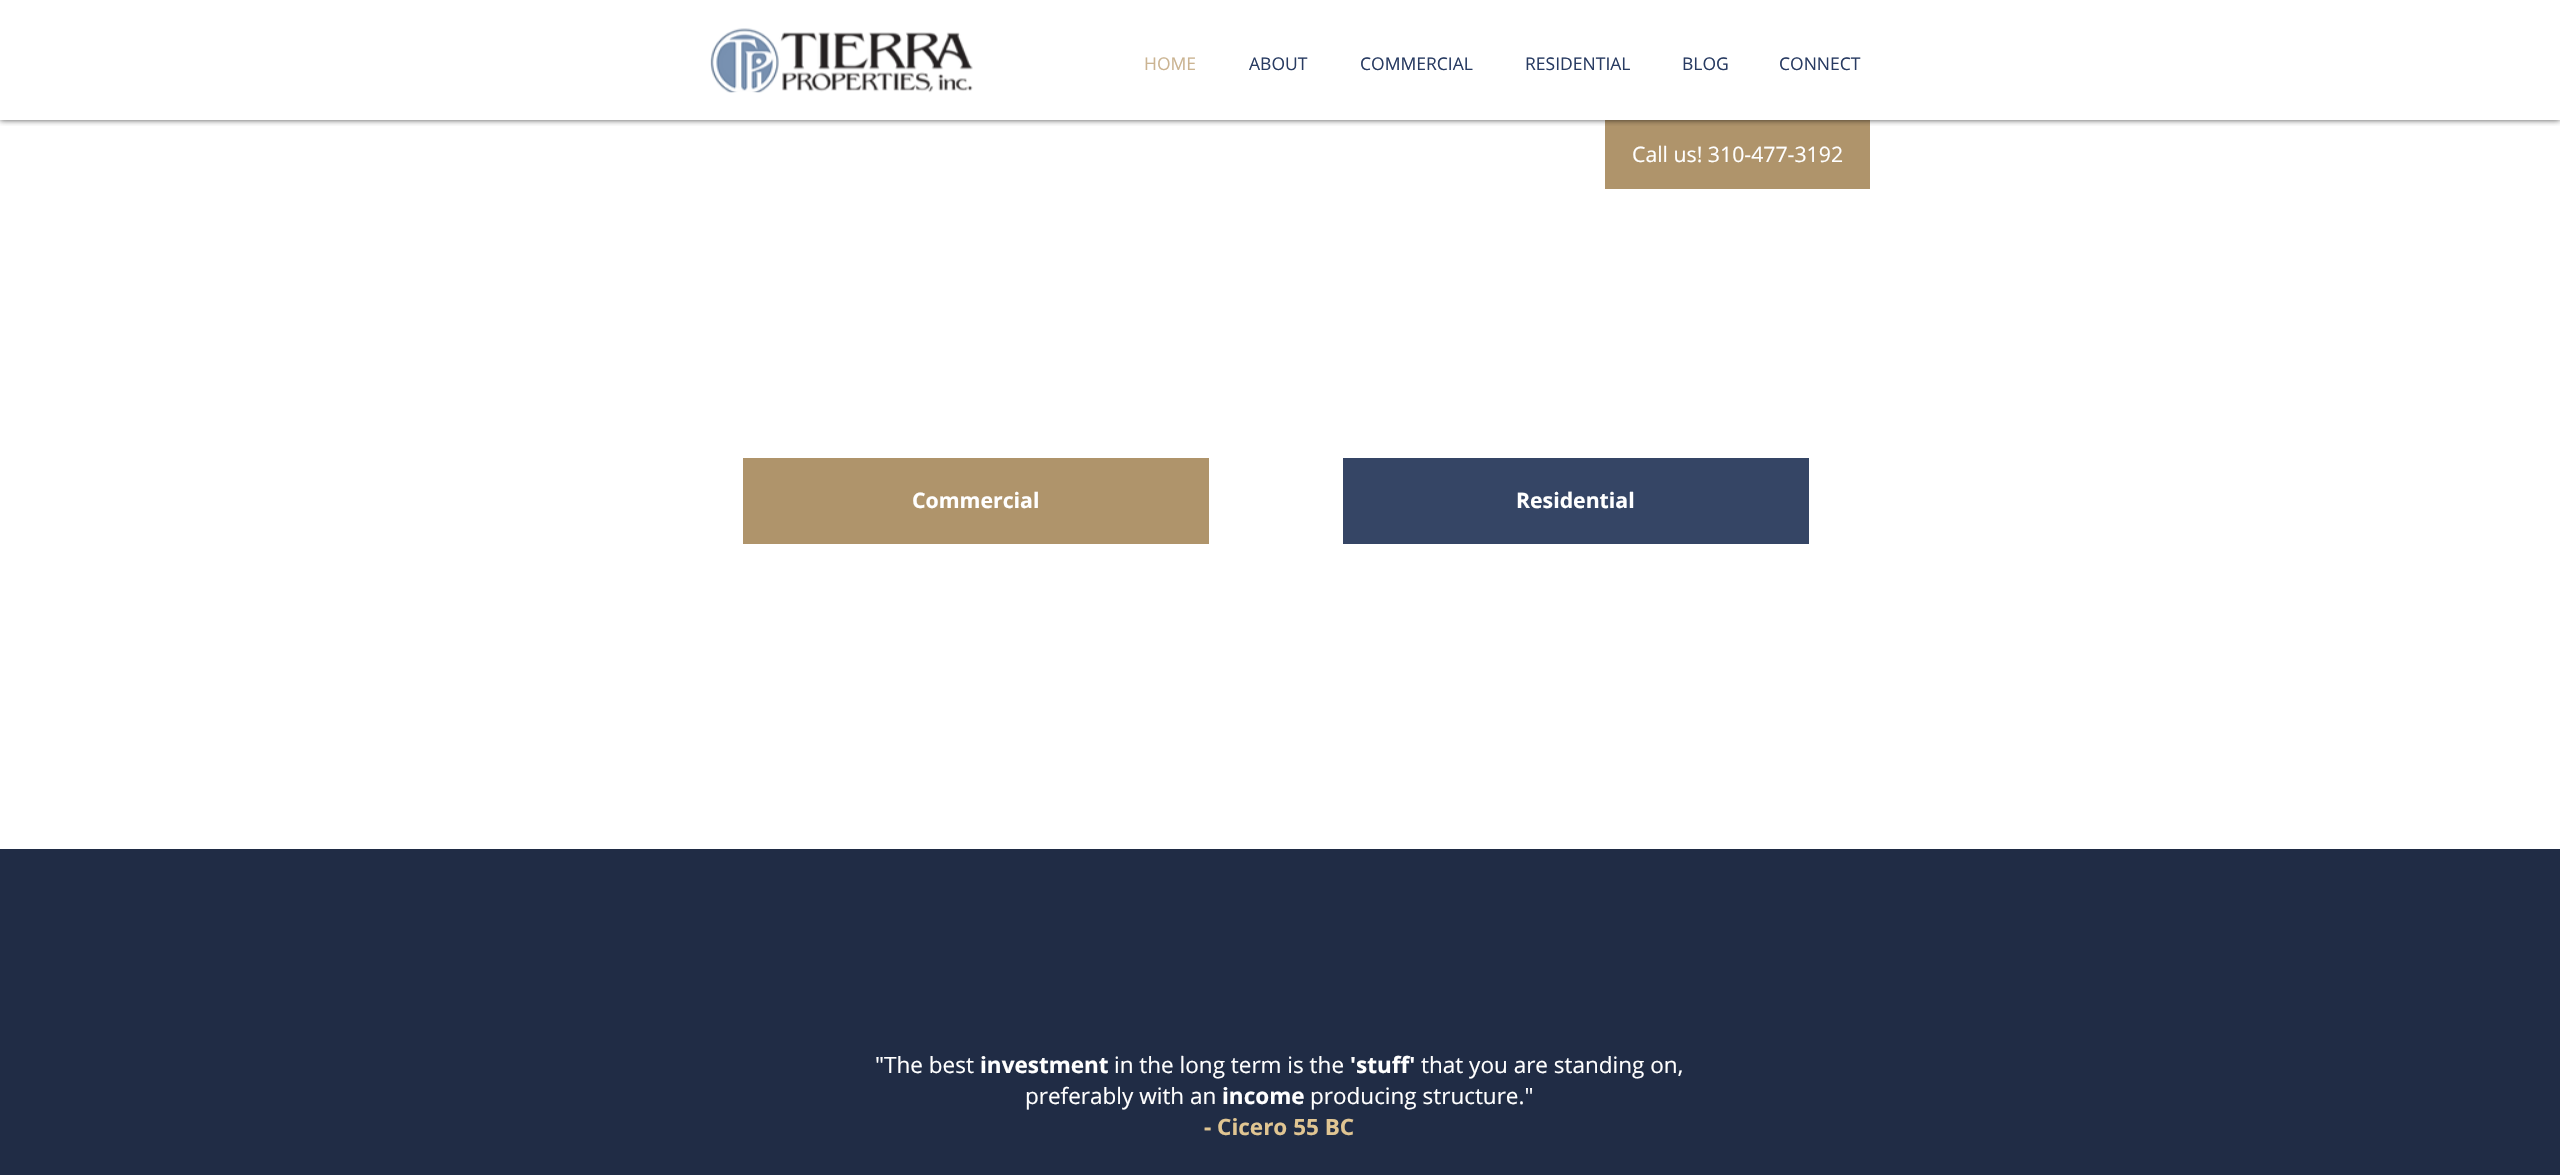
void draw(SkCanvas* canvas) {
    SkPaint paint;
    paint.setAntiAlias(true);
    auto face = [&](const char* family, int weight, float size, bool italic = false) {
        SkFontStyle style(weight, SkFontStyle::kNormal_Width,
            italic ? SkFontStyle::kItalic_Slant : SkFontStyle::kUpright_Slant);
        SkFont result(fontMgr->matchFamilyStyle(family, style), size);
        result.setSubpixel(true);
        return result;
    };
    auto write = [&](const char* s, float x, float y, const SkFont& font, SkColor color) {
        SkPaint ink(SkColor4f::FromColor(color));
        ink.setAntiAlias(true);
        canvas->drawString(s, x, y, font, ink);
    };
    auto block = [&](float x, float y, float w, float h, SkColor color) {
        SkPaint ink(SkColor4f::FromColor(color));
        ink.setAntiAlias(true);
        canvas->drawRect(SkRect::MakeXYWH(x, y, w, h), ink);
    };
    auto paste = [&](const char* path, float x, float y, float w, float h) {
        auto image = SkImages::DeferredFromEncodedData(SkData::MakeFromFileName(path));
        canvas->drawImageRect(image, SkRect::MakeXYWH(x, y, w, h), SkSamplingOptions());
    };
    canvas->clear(SK_ColorWHITE);
    block(1605, 120, 265, 69, SkColorSetRGB(175, 148, 107));
    canvas->save();
    canvas->clipRect(SkRect::MakeXYWH(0, 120, 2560, 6));
    paint.setColor(SkColorSetARGB(179, 0, 0, 0));
    paint.setMaskFilter(SkMaskFilter::MakeBlur(kNormal_SkBlurStyle, 3));
    canvas->drawRect(SkRect::MakeXYWH(0, 0, 2560, 120), paint);
    paint.setMaskFilter(nullptr);
    canvas->restore();
    paste("pic1.png", 710, 28, 263, 65);
    auto kFont1 = face("Open Sans", 400, 17.5f);
    write("HOME", 1144, 70, kFont1, SkColorSetRGB(203, 180, 146));
    write("ABOUT", 1249, 70, kFont1, SkColorSetRGB(40, 59, 98));
    write("COMMERCIAL", 1360, 70, kFont1, SkColorSetRGB(40, 59, 98));
    write("RESIDENTIAL", 1525, 70, kFont1, SkColorSetRGB(40, 59, 98));
    write("BLOG", 1682, 70, kFont1, SkColorSetRGB(40, 59, 98));
    write("CONNECT", 1779, 70, kFont1, SkColorSetRGB(40, 59, 98));
    auto kFont2 = face("Open Sans", 400, 21.25f);
    write("Call us! 310-477-3192", 1632, 162, kFont2, SK_ColorWHITE);
    block(743, 458, 466, 86, SkColorSetRGB(175, 148, 107));
    auto kFont3 = face("Open Sans", 700, 21.25f);
    write("Commercial", 912, 508, kFont3, SK_ColorWHITE);
    block(1343, 458, 466, 86, SkColorSetRGB(53, 69, 101));
    write("Residential", 1516, 508, kFont3, SK_ColorWHITE);
    block(0, 849, 2560, 326, SkColorSetRGB(32, 44, 69));
    auto kFont4 = face("Open Sans", 400, 22.5f);
    write("\"The best", 875, 1073, kFont4, SK_ColorWHITE);
    auto kFont5 = face("Open Sans", 700, 22.5f);
    write("investment", 980, 1073, kFont5, SK_ColorWHITE);
    write("in the long term is the", 1114, 1073, kFont4, SK_ColorWHITE);
    write("'stuff'", 1350, 1073, kFont5, SK_ColorWHITE);
    write("that you are standing on,", 1421, 1073, kFont4, SK_ColorWHITE);
    write("preferably with an", 1025, 1104, kFont4, SK_ColorWHITE);
    write("income", 1222, 1104, kFont5, SK_ColorWHITE);
    write("producing structure.\"", 1310, 1104, kFont4, SK_ColorWHITE);
    write("- Cicero 55 BC", 1204, 1135, kFont5, SkColorSetRGB(224, 197, 146));
}
